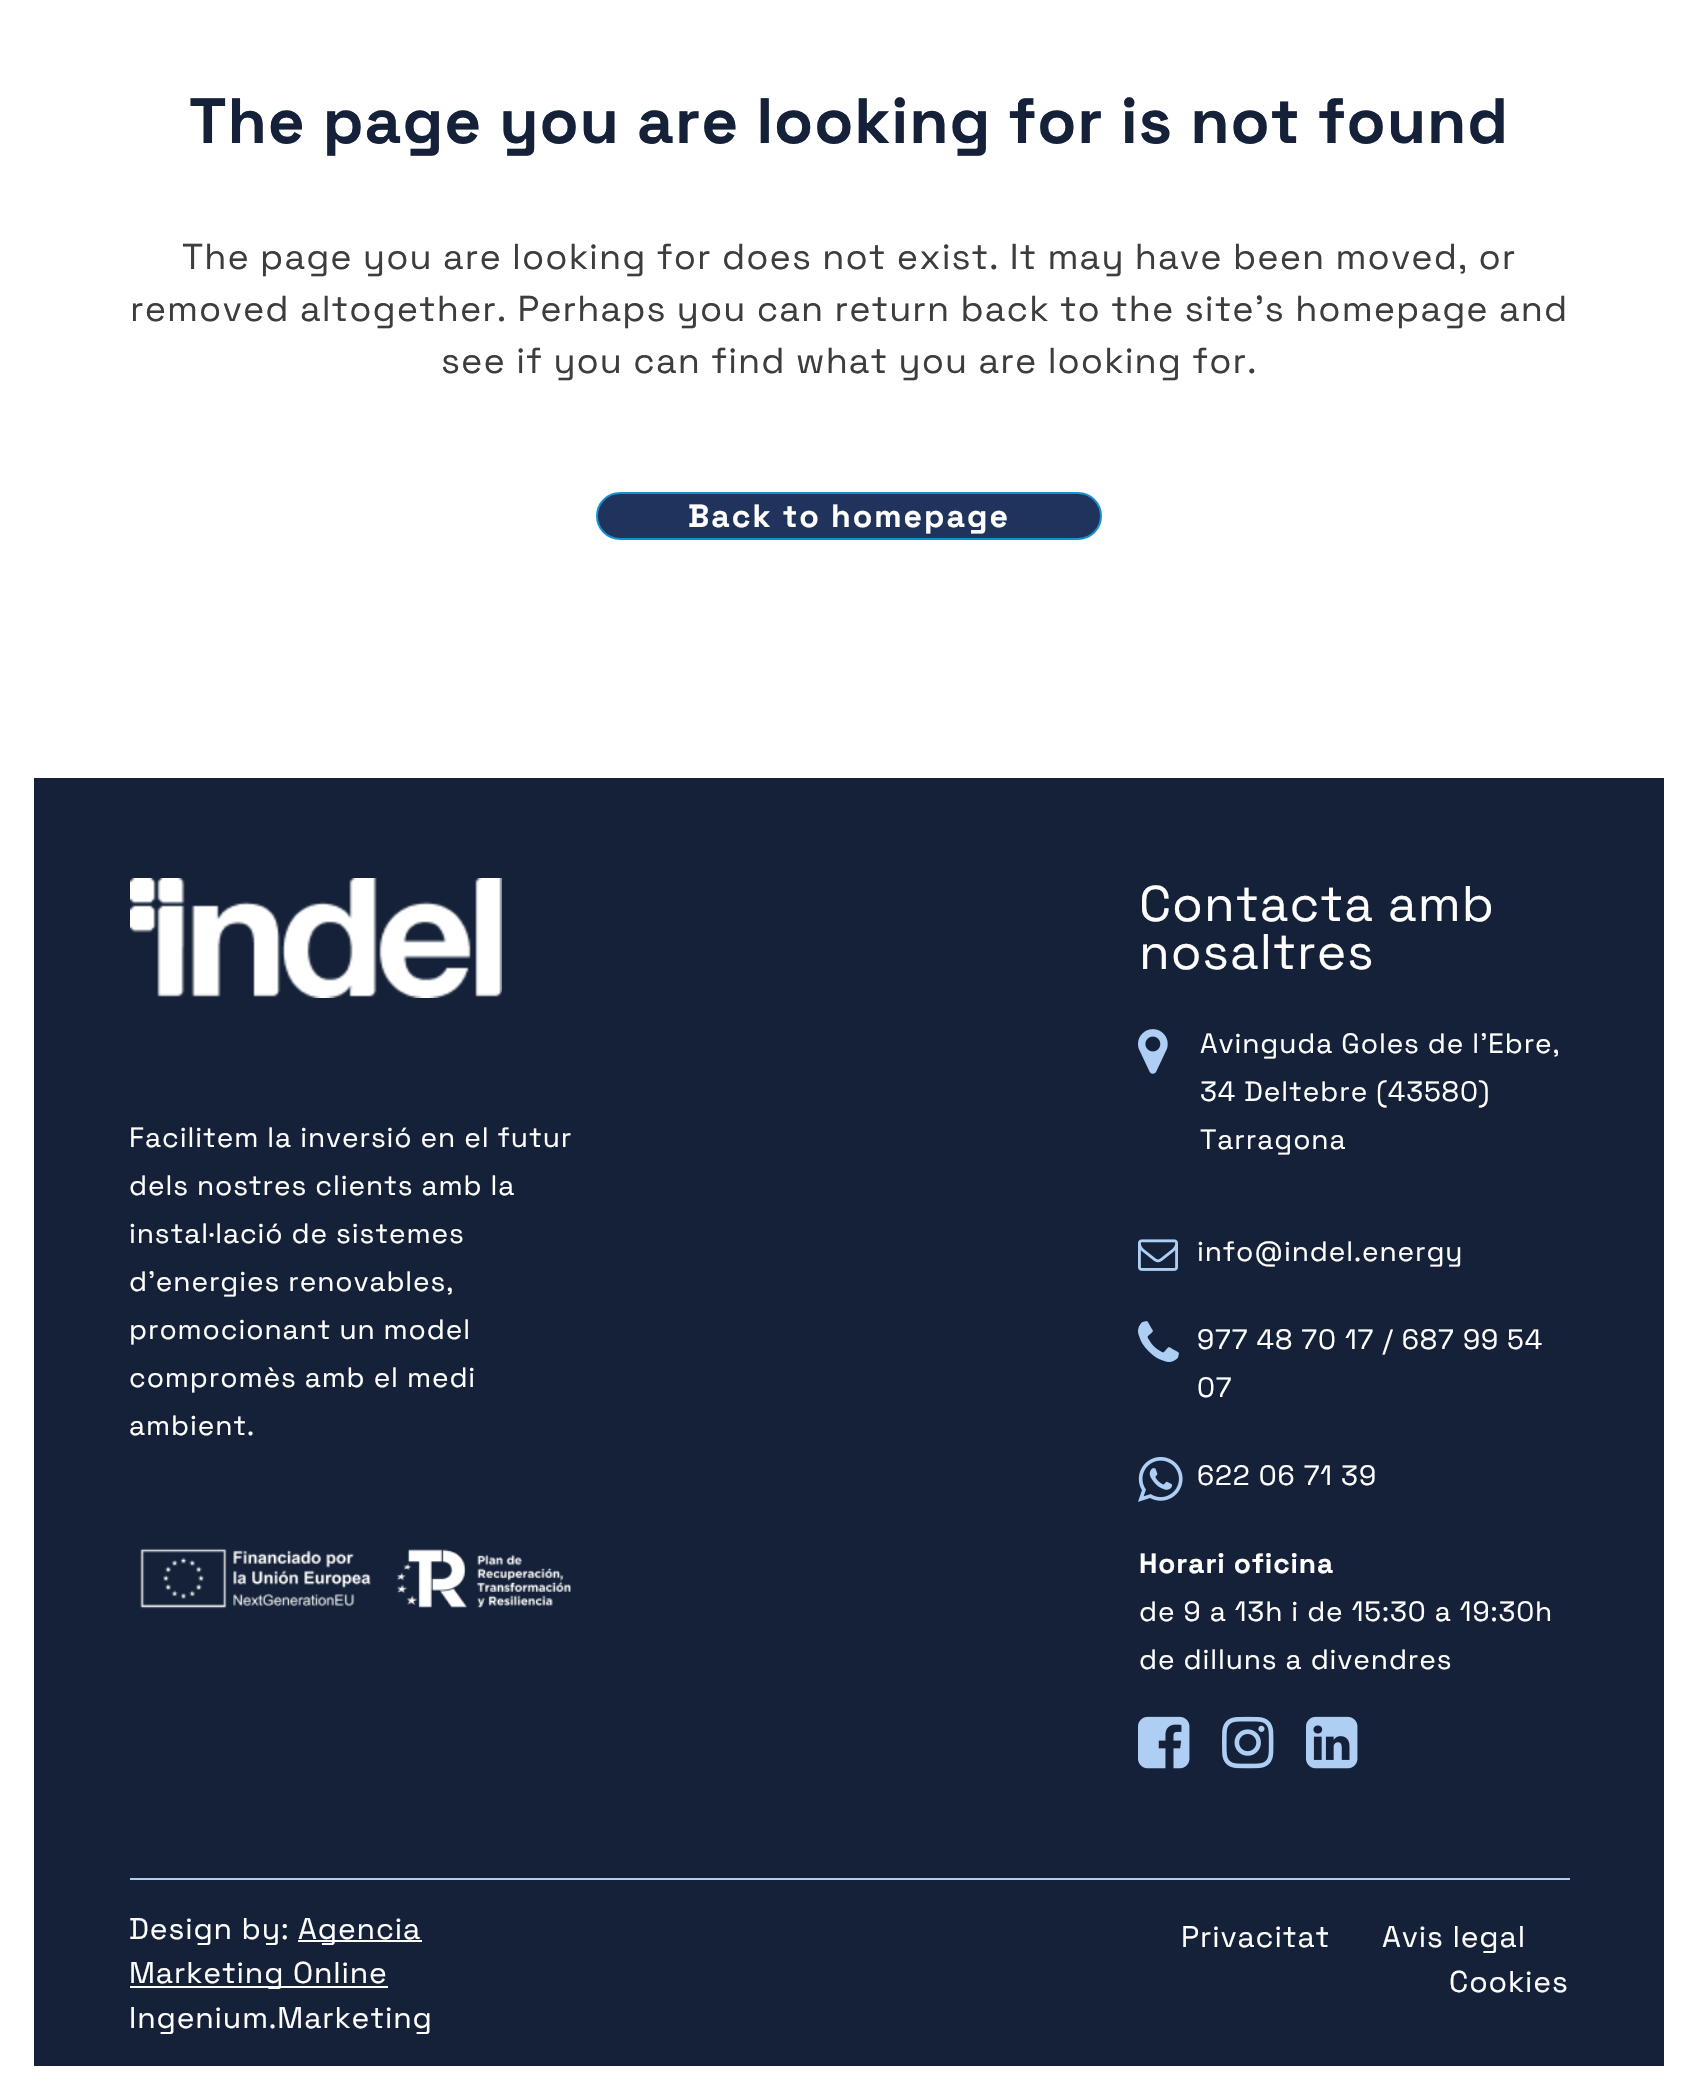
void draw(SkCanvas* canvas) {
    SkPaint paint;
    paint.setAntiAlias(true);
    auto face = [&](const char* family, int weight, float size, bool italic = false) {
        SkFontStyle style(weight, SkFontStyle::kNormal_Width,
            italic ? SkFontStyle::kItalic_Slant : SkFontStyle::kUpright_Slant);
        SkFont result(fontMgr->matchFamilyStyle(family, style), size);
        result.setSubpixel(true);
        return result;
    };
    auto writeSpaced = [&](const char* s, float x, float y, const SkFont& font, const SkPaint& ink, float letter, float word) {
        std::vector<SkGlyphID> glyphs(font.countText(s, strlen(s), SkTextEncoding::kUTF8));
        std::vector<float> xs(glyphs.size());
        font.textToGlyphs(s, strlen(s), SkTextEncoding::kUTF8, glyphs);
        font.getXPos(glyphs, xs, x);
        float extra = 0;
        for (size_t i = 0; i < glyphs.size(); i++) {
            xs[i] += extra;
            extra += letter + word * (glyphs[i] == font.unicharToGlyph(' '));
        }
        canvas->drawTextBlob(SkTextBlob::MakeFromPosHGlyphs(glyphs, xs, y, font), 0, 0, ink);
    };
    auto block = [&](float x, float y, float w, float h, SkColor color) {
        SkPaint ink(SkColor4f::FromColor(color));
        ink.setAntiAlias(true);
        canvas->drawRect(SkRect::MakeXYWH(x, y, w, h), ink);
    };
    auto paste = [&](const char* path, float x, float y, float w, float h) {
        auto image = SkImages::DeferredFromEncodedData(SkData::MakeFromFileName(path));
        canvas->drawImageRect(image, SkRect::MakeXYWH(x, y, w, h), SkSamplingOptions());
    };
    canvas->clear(SK_ColorWHITE);
    auto kFont1 = face("Space Grotesk", 700, 64);
    paint.setColor(SkColorSetRGB(20, 33, 56));
    writeSpaced("The page you are looking for is not found", 189, 143, kFont1, paint, 0.9f, 0);
    auto kFont2 = face("Space Grotesk", 400, 36);
    paint.setColor(SkColorSetRGB(61, 61, 61));
    writeSpaced("The page you are looking for does not exist. It may have been moved, or", 182, 269, kFont2, paint, 1.08f, 0);
    writeSpaced("removed altogether. Perhaps you can return back to the site's homepage and", 130, 321, kFont2, paint, 1.08f, 0);
    writeSpaced("see if you can find what you are looking for.", 441, 373, kFont2, paint, 1.08f, 0);
    paint.setColor(SkColorSetRGB(31, 51, 92));
    canvas->drawRoundRect(SkRect::MakeXYWH(597, 493, 504, 46), 23, 23, paint);
    paint.setStyle(SkPaint::kStroke_Style);
    paint.setStrokeWidth(2);
    paint.setColor(SkColorSetRGB(22, 146, 209));
    canvas->drawRoundRect(SkRect::MakeXYWH(597, 493, 504, 46), 23, 23, paint);
    auto kFont3 = face("Space Grotesk", 700, 32);
    paint.setStyle(SkPaint::kFill_Style);
    paint.setColor(SK_ColorWHITE);
    writeSpaced("Back to homepage", 688, 527, kFont3, paint, 2, 0);
    block(34, 778, 1630, 1288, SkColorSetRGB(20, 33, 56));
    paste("pic1.png", 130, 878, 372, 120);
    auto kFont4 = face("Space Grotesk", 400, 28);
    writeSpaced("Facilitem la inversió en el futur", 129, 1147, kFont4, paint, 0.9f, 0);
    writeSpaced("dels nostres clients amb la", 129, 1195, kFont4, paint, 0.9f, 0);
    writeSpaced("instal·lació de sistemes", 129, 1243, kFont4, paint, 0.9f, 0);
    writeSpaced("d’energies renovables,", 129, 1291, kFont4, paint, 0.9f, 0);
    writeSpaced("promocionant un model", 129, 1339, kFont4, paint, 0.9f, 0);
    writeSpaced("compromès amb el medi", 129, 1387, kFont4, paint, 0.9f, 0);
    writeSpaced("ambient.", 129, 1435, kFont4, paint, 0.9f, 0);
    paste("pic2.png", 140, 1548, 431, 61);
    auto kFont5 = face("Space Grotesk", 400, 50);
    writeSpaced("Contacta amb", 1139, 921, kFont5, paint, 1, 0);
    writeSpaced("nosaltres", 1139, 969, kFont5, paint, 1, 0);
    paste("pic3.png", 1138, 1029, 30, 45);
    writeSpaced("Avinguda Goles de l'Ebre,", 1200, 1053, kFont4, paint, 0.9f, 0);
    writeSpaced("34 Deltebre (43580)", 1200, 1101, kFont4, paint, 0.9f, 0);
    writeSpaced("Tarragona", 1200, 1149, kFont4, paint, 0.9f, 0);
    paste("pic4.png", 1138, 1239, 40, 32);
    writeSpaced("info@indel.energy", 1197, 1261, kFont4, paint, 0.9f, 0);
    paste("pic5.png", 1138, 1321, 41, 41);
    writeSpaced("977 48 70 17 / 687 99 54", 1197, 1349, kFont4, paint, 0.9f, 0);
    writeSpaced("07", 1197, 1397, kFont4, paint, 0.9f, 0);
    paste("pic6.png", 1138, 1457, 45, 45);
    writeSpaced("622 06 71 39", 1197, 1485, kFont4, paint, 0.9f, 0);
    auto kFont6 = face("Space Grotesk", 700, 28);
    writeSpaced("Horari oficina", 1139, 1573, kFont6, paint, 0.9f, 0);
    writeSpaced("de 9 a 13h i de 15:30 a 19:30h", 1139, 1621, kFont4, paint, 0.9f, 0);
    writeSpaced("de dilluns a divendres", 1139, 1669, kFont4, paint, 0.9f, 0);
    paste("pic7.png", 1138, 1716, 52, 53);
    paste("pic8.png", 1222, 1716, 52, 53);
    paste("pic9.png", 1306, 1716, 52, 53);
    block(130, 1878, 1440, 2, SkColorSetRGB(174, 206, 244));
    auto kFont7 = face("Space Grotesk", 400, 30);
    writeSpaced("Design by:", 129, 1939, kFont7, paint, 0.9f, 0);
    block(298, 1940, 124, 2, SK_ColorWHITE);
    writeSpaced("Agencia", 298, 1939, kFont7, paint, 0.9f, 0);
    block(130, 1986, 258, 2, SK_ColorWHITE);
    writeSpaced("Marketing Online", 129, 1983, kFont7, paint, 0.9f, 0);
    writeSpaced("Ingenium.Marketing", 129, 2028, kFont7, paint, 0.9f, 0);
    writeSpaced("Privacitat", 1181, 1947, kFont7, paint, 0.9f, 0);
    writeSpaced("Avis legal", 1382, 1947, kFont7, paint, 0.9f, 0);
    writeSpaced("Cookies", 1449, 1992, kFont7, paint, 0.9f, 0);
}
